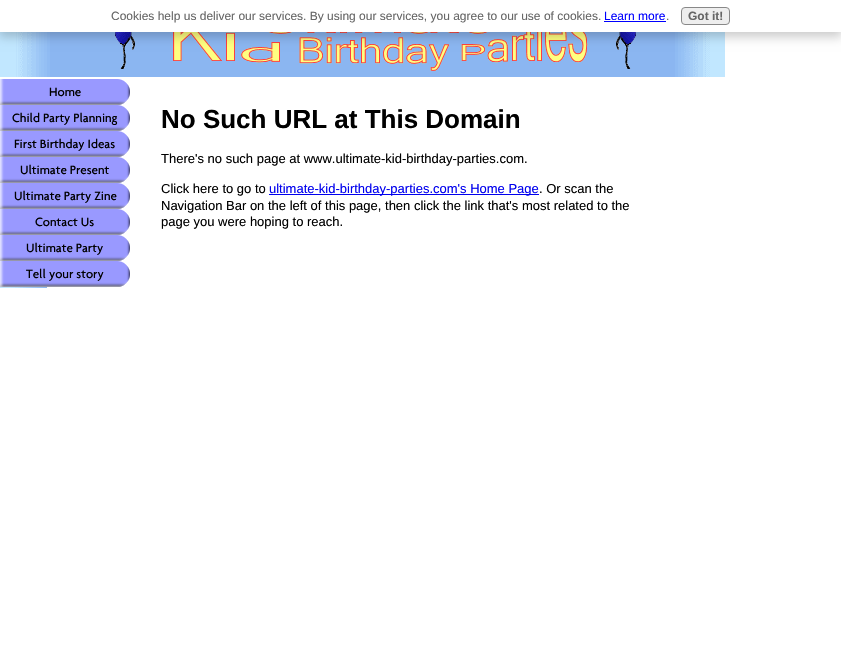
void draw(SkCanvas* canvas) {
    SkPaint paint;
    paint.setAntiAlias(true);
    auto face = [&](const char* family, int weight, float size, bool italic = false) {
        SkFontStyle style(weight, SkFontStyle::kNormal_Width,
            italic ? SkFontStyle::kItalic_Slant : SkFontStyle::kUpright_Slant);
        SkFont result(fontMgr->matchFamilyStyle(family, style), size);
        result.setSubpixel(true);
        return result;
    };
    auto write = [&](const char* s, float x, float y, const SkFont& font, SkColor color) {
        SkPaint ink(SkColor4f::FromColor(color));
        ink.setAntiAlias(true);
        canvas->drawString(s, x, y, font, ink);
    };
    auto block = [&](float x, float y, float w, float h, SkColor color) {
        SkPaint ink(SkColor4f::FromColor(color));
        ink.setAntiAlias(true);
        canvas->drawRect(SkRect::MakeXYWH(x, y, w, h), ink);
    };
    auto paste = [&](const char* path, float x, float y, float w, float h) {
        auto image = SkImages::DeferredFromEncodedData(SkData::MakeFromFileName(path));
        canvas->drawImageRect(image, SkRect::MakeXYWH(x, y, w, h), SkSamplingOptions());
    };
    canvas->clear(SK_ColorWHITE);
    paste("pic1.png", 0, 32, 725, 45);
    paint.setColor(SkColorSetARGB(51, 0, 0, 0));
    paint.setMaskFilter(SkMaskFilter::MakeBlur(kNormal_SkBlurStyle, 5));
    canvas->drawRect(SkRect::MakeXYWH(-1, 3, 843, 34), paint);
    paint.setMaskFilter(nullptr);
    block(0, 0, 841, 32, SK_ColorWHITE);
    auto kFont1 = face("Liberation Sans", 400, 12);
    write("Cookies help us deliver our services. By using our services, you agree to our use of cookies.", 111, 20, kFont1, SkColorSetRGB(102, 102, 102));
    write("Learn more", 604, 20, kFont1, SkColorSetRGB(0, 0, 255));
    block(604, 21, 62, 1, SkColorSetRGB(0, 0, 255));
    write(".", 666, 20, kFont1, SkColorSetRGB(102, 102, 102));
    paint.setColor(SkColorSetRGB(238, 238, 238));
    canvas->drawRoundRect(SkRect::MakeXYWH(681.5f, 7.5f, 48, 17), 3.5f, 3.5f, paint);
    paint.setStyle(SkPaint::kStroke_Style);
    paint.setStrokeWidth(1);
    paint.setColor(SkColorSetRGB(136, 136, 136));
    canvas->drawRoundRect(SkRect::MakeXYWH(681.5f, 7.5f, 48, 17), 3.5f, 3.5f, paint);
    auto kFont2 = face("Liberation Sans", 700, 12);
    write("Got it!", 688, 20, kFont2, SkColorSetRGB(102, 102, 102));
    paste("pic2.png", 0, 287, 47, 1);
    paste("pic3.png", 0, 79, 130, 26);
    auto kFont3 = face("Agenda", 400, 13);
    write("Home", 49, 96, kFont3, SK_ColorBLACK);
    paste("pic3.png", 0, 105, 130, 26);
    write("Child Party Planning", 12, 122, kFont3, SK_ColorBLACK);
    paste("pic3.png", 0, 131, 130, 26);
    write("First Birthday Ideas", 14, 148, kFont3, SK_ColorBLACK);
    paste("pic3.png", 0, 157, 130, 26);
    write("Ultimate Present", 20, 174, kFont3, SK_ColorBLACK);
    paste("pic3.png", 0, 183, 130, 26);
    write("Ultimate Party Zine", 14, 200, kFont3, SK_ColorBLACK);
    paste("pic3.png", 0, 209, 130, 26);
    write("Contact Us", 35, 226, kFont3, SK_ColorBLACK);
    paste("pic3.png", 0, 235, 130, 26);
    write("Ultimate Party", 26, 252, kFont3, SK_ColorBLACK);
    paste("pic3.png", 0, 261, 130, 26);
    write("Tell your story", 26, 278, kFont3, SK_ColorBLACK);
    auto kFont4 = face("Liberation Sans", 700, 26);
    write("No Such URL at This Domain", 161, 128, kFont4, SK_ColorBLACK);
    auto kFont5 = face("Liberation Sans", 400, 13);
    write("There's no such page at www.ultimate-kid-birthday-parties.com.", 161, 163, kFont5, SK_ColorBLACK);
    write("Click here to go to", 161, 193, kFont5, SK_ColorBLACK);
    block(269, 194, 270, 1, SkColorSetRGB(0, 0, 238));
    write("ultimate-kid-birthday-parties.com's Home Page", 269, 193, kFont5, SkColorSetRGB(0, 0, 238));
    write(". Or scan the", 539, 193, kFont5, SK_ColorBLACK);
    write("Navigation Bar on the left of this page, then click the link that's most related to the", 161, 210, kFont5, SK_ColorBLACK);
    write("page you were hoping to reach.", 161, 226, kFont5, SK_ColorBLACK);
}
